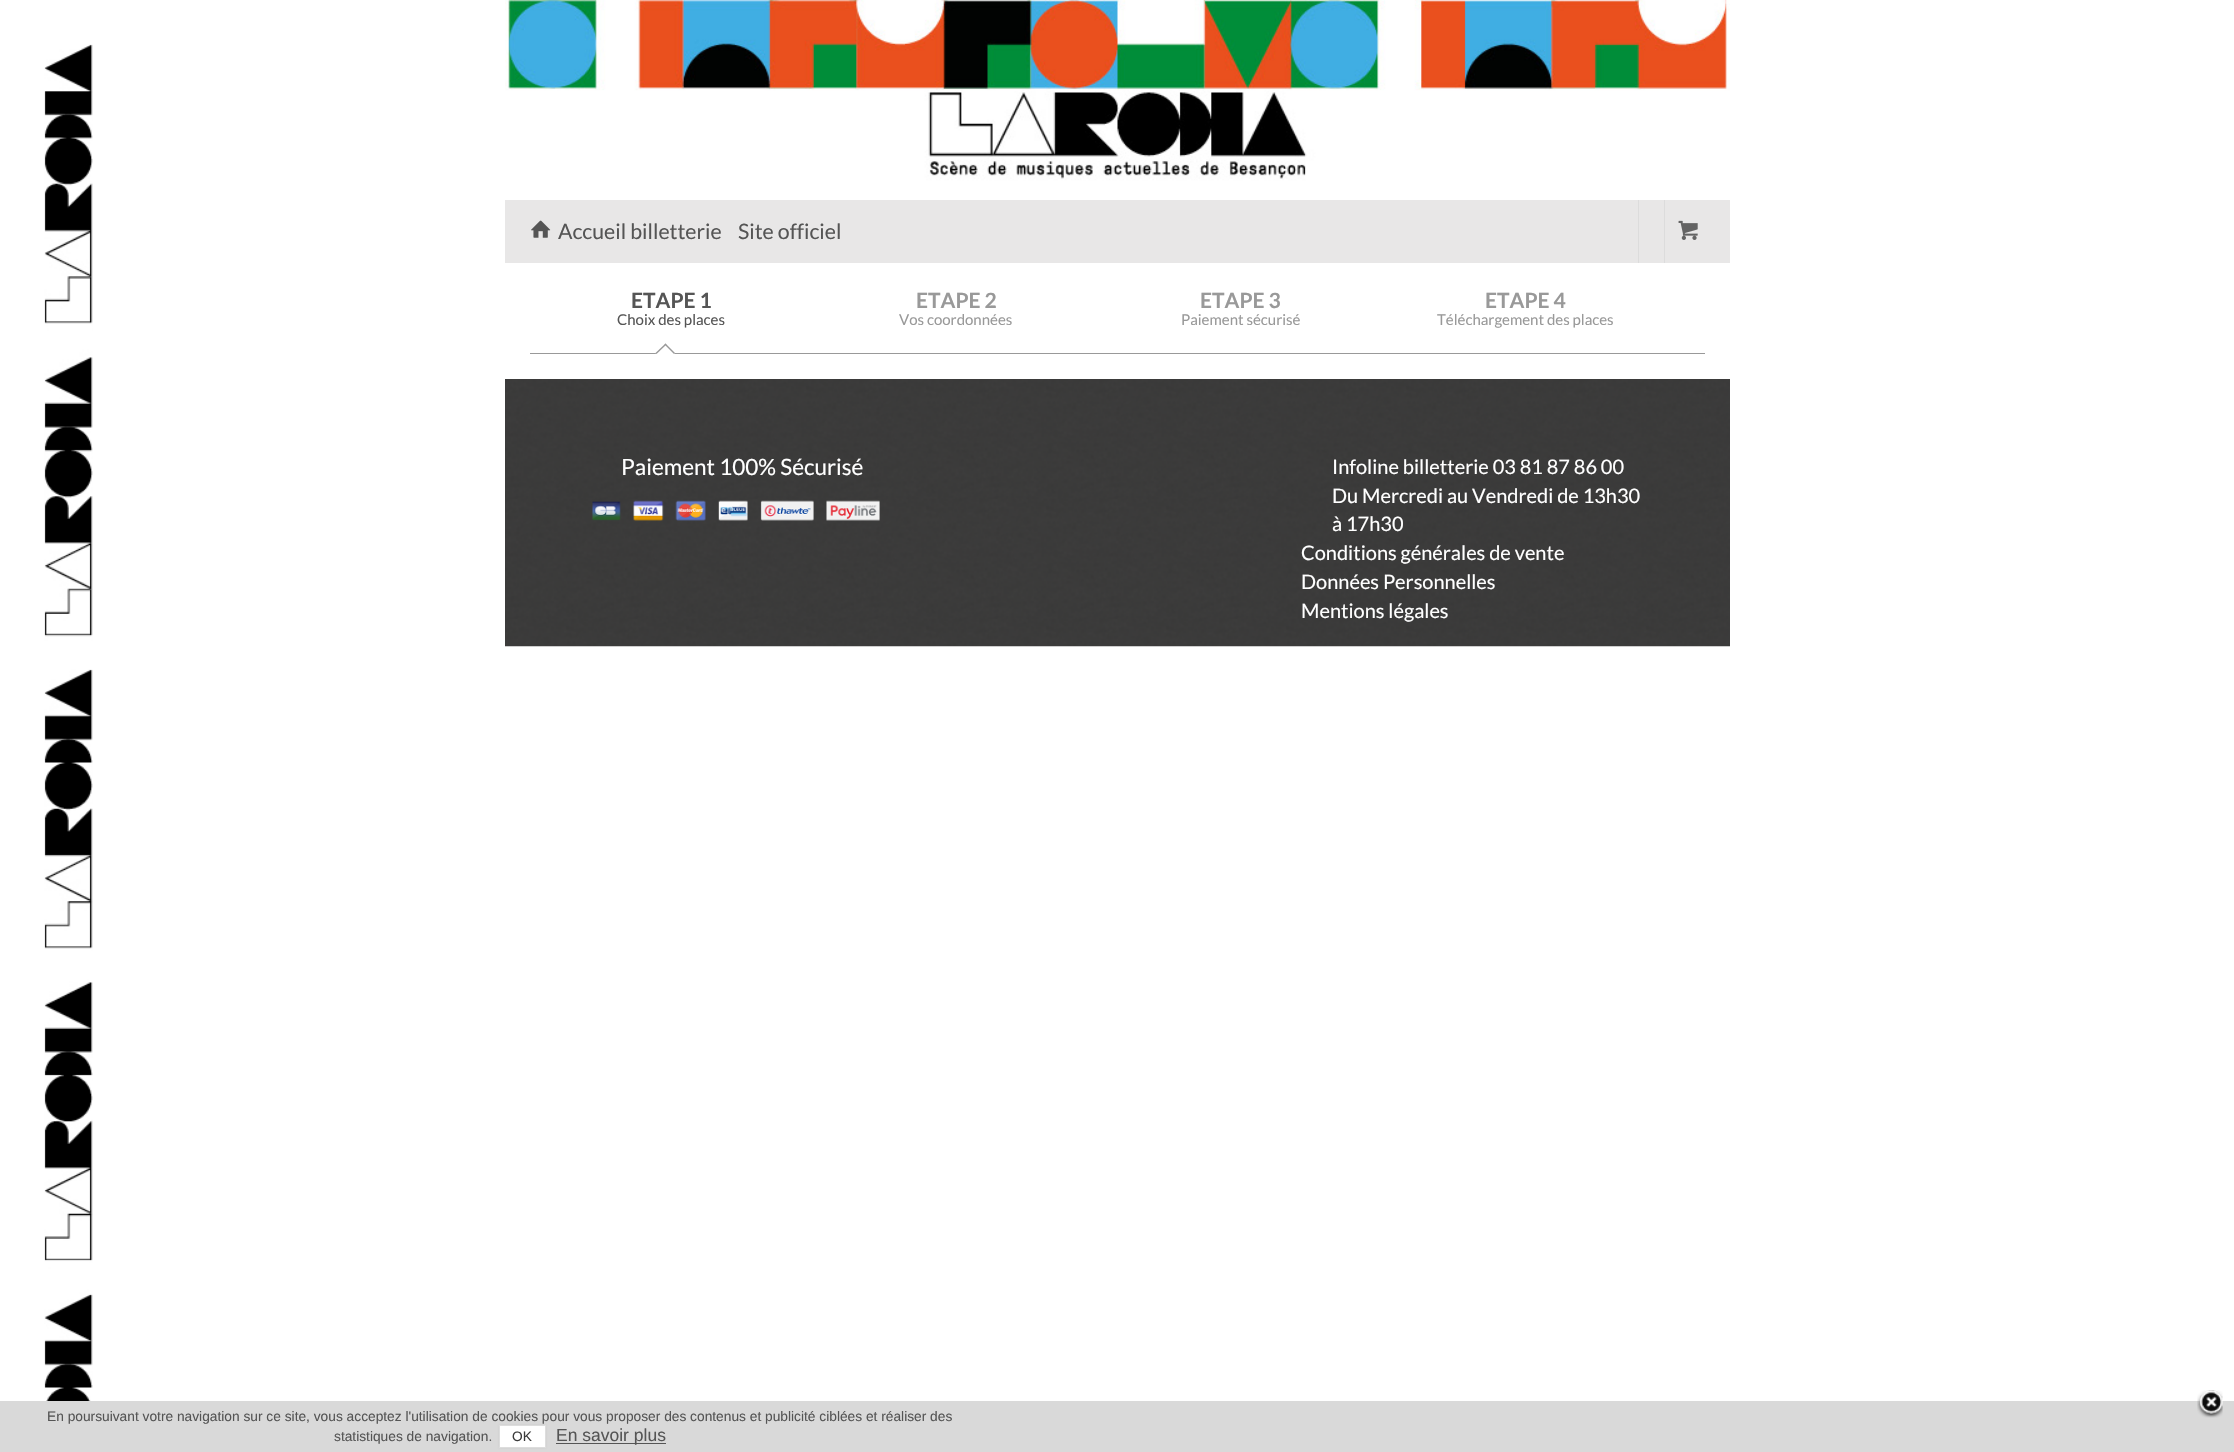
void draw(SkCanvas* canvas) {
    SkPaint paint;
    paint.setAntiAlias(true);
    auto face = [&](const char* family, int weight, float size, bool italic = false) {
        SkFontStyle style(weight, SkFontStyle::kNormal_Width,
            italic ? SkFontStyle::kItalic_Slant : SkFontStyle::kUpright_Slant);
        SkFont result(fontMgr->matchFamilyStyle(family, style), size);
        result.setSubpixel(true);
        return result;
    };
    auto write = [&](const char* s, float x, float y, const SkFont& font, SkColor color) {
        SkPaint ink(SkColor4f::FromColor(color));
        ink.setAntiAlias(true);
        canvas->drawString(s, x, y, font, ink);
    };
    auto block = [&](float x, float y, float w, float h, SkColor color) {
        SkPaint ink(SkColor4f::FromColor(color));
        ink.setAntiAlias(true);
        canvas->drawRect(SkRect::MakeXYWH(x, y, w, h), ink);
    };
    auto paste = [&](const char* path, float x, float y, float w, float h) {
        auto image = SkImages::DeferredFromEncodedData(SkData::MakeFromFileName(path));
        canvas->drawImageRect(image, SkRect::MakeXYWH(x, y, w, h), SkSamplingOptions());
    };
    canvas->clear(SK_ColorWHITE);
    paste("pic1.png", 44, 44, 49, 1357);
    paste("pic2.png", 505, 0, 1225, 200);
    block(505, 200, 1225, 63, SkColorSetRGB(232, 231, 231));
    paste("pic3.png", 531, 220, 20, 18);
    auto kFont1 = face("Lato", 400, 21.25f);
    write("Accueil billetterie", 558, 239, kFont1, SkColorSetRGB(85, 85, 85));
    write("Site officiel", 738, 239, kFont1, SkColorSetRGB(85, 85, 85));
    block(1638, 200, 1, 63, SkColorSetRGB(220, 220, 220));
    block(1664, 200, 1, 63, SkColorSetRGB(220, 220, 220));
    paste("pic4.png", 1678, 220, 20, 20);
    block(530, 353, 1175, 1, SkColorSetRGB(153, 153, 153));
    auto kFont2 = face("Lato", 700, 21);
    write("ETAPE 1", 631, 308, kFont2, SkColorSetRGB(85, 85, 85));
    auto kFont3 = face("Lato", 400, 15);
    write("Choix des places", 617, 325, kFont3, SkColorSetRGB(85, 85, 85));
    paint.setColor(SK_ColorWHITE);
    canvas->drawPath(SkPathBuilder().moveTo(665.5f, 343.5f).lineTo(675, 353).lineTo(665.5f, 363).lineTo(655.5f, 353).close().detach(), paint);
    paint.setColor(SkColorSetRGB(153, 153, 153));
    canvas->drawPath(SkPathBuilder().moveTo(665.5f, 343.5f).lineTo(675, 353).lineTo(674, 354).lineTo(664.5f, 344.5f).close().detach(), paint);
    canvas->drawPath(SkPathBuilder().moveTo(665.5f, 343.5f).lineTo(666.5f, 344.5f).lineTo(656.5f, 354).lineTo(655.5f, 353).close().detach(), paint);
    write("ETAPE 2", 916, 308, kFont2, SkColorSetRGB(153, 153, 153));
    write("Vos coordonnées", 899, 325, kFont3, SkColorSetRGB(153, 153, 153));
    write("ETAPE 3", 1200, 308, kFont2, SkColorSetRGB(153, 153, 153));
    write("Paiement sécurisé", 1181, 325, kFont3, SkColorSetRGB(153, 153, 153));
    write("ETAPE 4", 1485, 308, kFont2, SkColorSetRGB(153, 153, 153));
    write("Téléchargement des places", 1437, 325, kFont3, SkColorSetRGB(153, 153, 153));
    paste("pic5.png", 505, 379, 1225, 268);
    paste("pic6.png", 592, 500, 288, 21);
    auto kFont4 = face("Lato", 400, 22.5f);
    write("Paiement 100% Sécurisé", 621, 475, kFont4, SK_ColorWHITE);
    auto kFont5 = face("Lato", 400, 20);
    write("Infoline billetterie 03 81 87 86 00", 1332, 474, kFont5, SK_ColorWHITE);
    write("Du Mercredi au Vendredi de 13h30", 1332, 503, kFont5, SK_ColorWHITE);
    write("à 17h30", 1332, 531, kFont5, SK_ColorWHITE);
    write("Conditions générales de vente", 1301, 560, kFont5, SK_ColorWHITE);
    write("Données Personnelles", 1301, 589, kFont5, SK_ColorWHITE);
    write("Mentions légales", 1301, 618, kFont5, SK_ColorWHITE);
    block(0, 1401, 2234, 51, SkColorSetRGB(217, 217, 217));
    paste("pic7.png", 2197, 1390, 26, 28);
    auto kFont6 = face("Liberation Sans", 400, 13.75f);
    write("En poursuivant votre navigation sur ce site, vous acceptez l'utilisation de cookies pour vous proposer des contenus et publicité ciblées et réaliser des", 47, 1421, kFont6, SkColorSetRGB(85, 85, 85));
    write("statistiques de navigation.", 334, 1441, kFont6, SkColorSetRGB(85, 85, 85));
    paint.setColor(SkColorSetRGB(204, 204, 204));
    paint.setMaskFilter(SkMaskFilter::MakeBlur(kNormal_SkBlurStyle, 1));
    canvas->drawRect(SkRect::MakeXYWH(499, 1425, 47, 23), paint);
    paint.setMaskFilter(nullptr);
    paint.setColor(SK_ColorWHITE);
    canvas->drawRect(SkRect::MakeXYWH(499.5f, 1425.5f, 46, 22), paint);
    paint.setStyle(SkPaint::kStroke_Style);
    paint.setStrokeWidth(1);
    paint.setColor(SkColorSetRGB(221, 221, 221));
    canvas->drawRect(SkRect::MakeXYWH(499.5f, 1425.5f, 46, 22), paint);
    write("OK", 512, 1441, kFont6, SkColorSetRGB(59, 59, 59));
    block(556, 1443, 110, 1, SkColorSetRGB(85, 85, 85));
    auto kFont7 = face("Liberation Sans", 400, 17.5f);
    write("En savoir plus", 556, 1441, kFont7, SkColorSetRGB(85, 85, 85));
}
